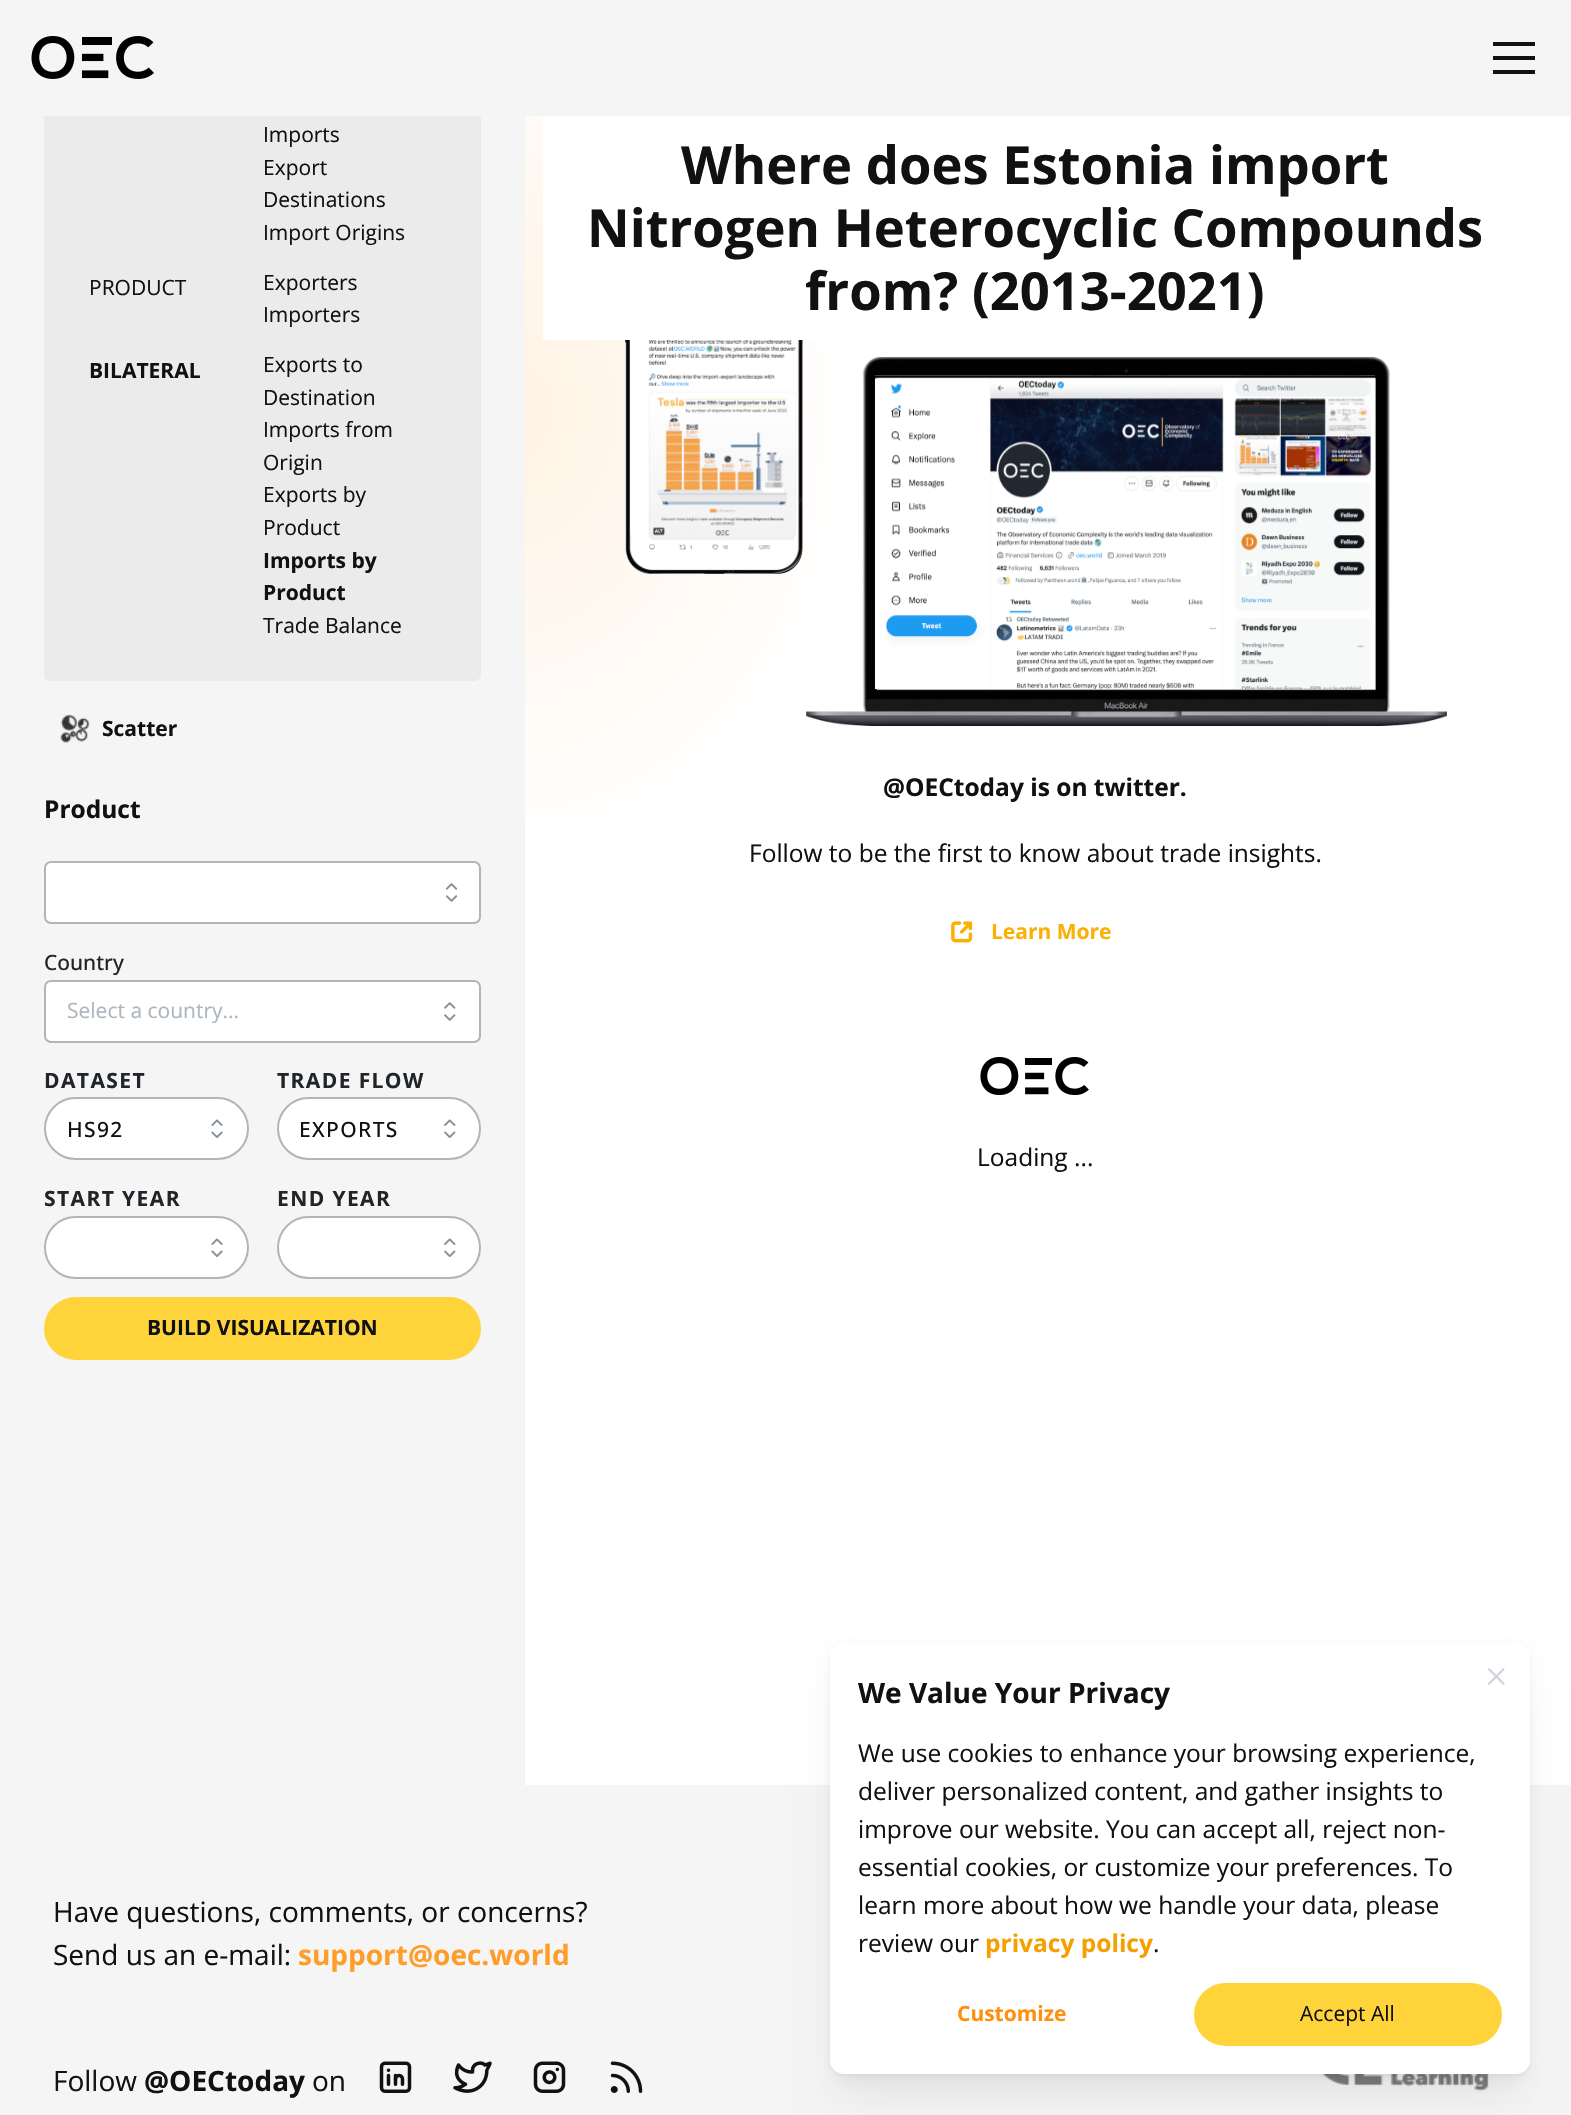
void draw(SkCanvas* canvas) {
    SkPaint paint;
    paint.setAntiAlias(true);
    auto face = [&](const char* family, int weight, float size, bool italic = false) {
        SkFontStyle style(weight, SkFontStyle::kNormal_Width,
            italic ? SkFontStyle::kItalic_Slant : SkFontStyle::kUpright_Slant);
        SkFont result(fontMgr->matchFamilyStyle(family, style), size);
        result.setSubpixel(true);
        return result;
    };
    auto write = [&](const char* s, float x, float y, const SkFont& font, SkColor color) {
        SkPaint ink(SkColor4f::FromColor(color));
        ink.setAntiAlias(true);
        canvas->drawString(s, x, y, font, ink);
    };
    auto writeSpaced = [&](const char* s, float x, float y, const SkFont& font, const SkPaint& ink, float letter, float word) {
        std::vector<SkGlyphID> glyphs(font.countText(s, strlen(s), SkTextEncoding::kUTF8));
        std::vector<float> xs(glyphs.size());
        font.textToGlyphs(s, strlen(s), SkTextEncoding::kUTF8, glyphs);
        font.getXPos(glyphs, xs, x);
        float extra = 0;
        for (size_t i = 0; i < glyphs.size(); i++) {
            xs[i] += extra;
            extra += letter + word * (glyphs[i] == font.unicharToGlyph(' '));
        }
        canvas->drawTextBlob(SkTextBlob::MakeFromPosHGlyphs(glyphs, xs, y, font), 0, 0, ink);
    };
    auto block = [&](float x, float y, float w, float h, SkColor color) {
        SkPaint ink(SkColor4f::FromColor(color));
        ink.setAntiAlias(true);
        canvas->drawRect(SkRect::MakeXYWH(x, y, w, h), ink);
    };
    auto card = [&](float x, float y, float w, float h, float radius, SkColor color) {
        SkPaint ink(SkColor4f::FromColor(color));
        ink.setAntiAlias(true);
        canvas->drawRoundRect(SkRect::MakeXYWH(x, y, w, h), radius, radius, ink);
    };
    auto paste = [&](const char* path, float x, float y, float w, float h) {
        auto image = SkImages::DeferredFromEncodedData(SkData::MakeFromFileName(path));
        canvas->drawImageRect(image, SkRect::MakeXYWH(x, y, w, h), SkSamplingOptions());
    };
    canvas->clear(SK_ColorWHITE);
    block(0, 116, 525, 1669, SkColorSetRGB(245, 245, 245));
    card(44, 16, 437, 665, 7, SkColorSetRGB(235, 235, 235));
    block(0, 0, 1571, 116, SkColorSetRGB(245, 245, 245));
    paste("pic1.png", 31, 36, 123, 43);
    block(1493, 56, 42, 4, SkColorSetRGB(16, 17, 18));
    block(1493, 42, 42, 4, SkColorSetRGB(16, 17, 18));
    block(1493, 70, 42, 4, SkColorSetRGB(16, 17, 18));
    auto kFont1 = face("Open Sans", 400, 21);
    write("Imports", 263, 142, kFont1, SkColorSetRGB(16, 17, 18));
    write("Export", 263, 175, kFont1, SkColorSetRGB(16, 17, 18));
    write("Destinations", 263, 207, kFont1, SkColorSetRGB(16, 17, 18));
    write("Import Origins", 263, 240, kFont1, SkColorSetRGB(16, 17, 18));
    write("PRODUCT", 89, 295, kFont1, SkColorSetRGB(16, 17, 18));
    write("Exporters", 263, 290, kFont1, SkColorSetRGB(16, 17, 18));
    write("Importers", 263, 322, kFont1, SkColorSetRGB(16, 17, 18));
    auto kFont2 = face("Open Sans", 700, 21);
    write("BILATERAL", 89, 378, kFont2, SkColorSetRGB(16, 17, 18));
    write("Exports to", 263, 372, kFont1, SkColorSetRGB(16, 17, 18));
    write("Destination", 263, 405, kFont1, SkColorSetRGB(16, 17, 18));
    write("Imports from", 263, 437, kFont1, SkColorSetRGB(16, 17, 18));
    write("Origin", 263, 470, kFont1, SkColorSetRGB(16, 17, 18));
    write("Exports by", 263, 502, kFont1, SkColorSetRGB(16, 17, 18));
    write("Product", 263, 535, kFont1, SkColorSetRGB(16, 17, 18));
    write("Imports by", 263, 568, kFont2, SkColorSetRGB(16, 17, 18));
    write("Product", 263, 600, kFont2, SkColorSetRGB(16, 17, 18));
    write("Trade Balance", 263, 633, kFont1, SkColorSetRGB(16, 17, 18));
    paste("pic2.png", 60, 714, 30, 29);
    write("Scatter", 102, 736, kFont2, SkColorSetRGB(16, 17, 18));
    auto kFont3 = face("Open Sans", 700, 24.5f);
    write("Product", 44, 818, kFont3, SkColorSetRGB(16, 17, 18));
    paint.setColor(SK_ColorWHITE);
    canvas->drawRoundRect(SkRect::MakeXYWH(45, 862, 435, 61), 6, 6, paint);
    paint.setStyle(SkPaint::kStroke_Style);
    paint.setStrokeWidth(2);
    paint.setColor(SkColorSetRGB(180, 180, 180));
    canvas->drawRoundRect(SkRect::MakeXYWH(45, 862, 435, 61), 6, 6, paint);
    paste("pic3.png", 445, 883, 13, 19);
    auto kFont4 = face("Open Sans", 500, 21);
    write("Country", 44, 970, kFont4, SkColorSetRGB(33, 37, 41));
    paint.setStyle(SkPaint::kFill_Style);
    paint.setColor(SK_ColorWHITE);
    canvas->drawRoundRect(SkRect::MakeXYWH(45, 981, 435, 61), 6, 6, paint);
    paint.setStyle(SkPaint::kStroke_Style);
    paint.setColor(SkColorSetRGB(180, 180, 180));
    canvas->drawRoundRect(SkRect::MakeXYWH(45, 981, 435, 61), 6, 6, paint);
    write("Select a country...", 67, 1018, kFont1, SkColorSetRGB(173, 181, 189));
    paste("pic4.png", 444, 1002, 12, 19);
    paint.setStyle(SkPaint::kFill_Style);
    paint.setColor(SkColorSetRGB(33, 37, 41));
    writeSpaced("DATASET", 44, 1088, kFont2, paint, 1.4f, 0);
    paint.setColor(SK_ColorWHITE);
    canvas->drawRoundRect(SkRect::MakeXYWH(45, 1098, 203, 61), 30.5f, 30.5f, paint);
    paint.setStyle(SkPaint::kStroke_Style);
    paint.setColor(SkColorSetRGB(180, 180, 180));
    canvas->drawRoundRect(SkRect::MakeXYWH(45, 1098, 203, 61), 30.5f, 30.5f, paint);
    paint.setStyle(SkPaint::kFill_Style);
    paint.setColor(SkColorSetRGB(16, 17, 18));
    writeSpaced("HS92", 67, 1137, kFont4, paint, 1.4f, 0);
    paste("pic5.png", 211, 1119, 12, 19);
    paint.setColor(SkColorSetRGB(33, 37, 41));
    writeSpaced("TRADE FLOW", 277, 1088, kFont2, paint, 1.4f, 0);
    paint.setColor(SK_ColorWHITE);
    canvas->drawRoundRect(SkRect::MakeXYWH(278, 1098, 202, 61), 30.5f, 30.5f, paint);
    paint.setStyle(SkPaint::kStroke_Style);
    paint.setColor(SkColorSetRGB(180, 180, 180));
    canvas->drawRoundRect(SkRect::MakeXYWH(278, 1098, 202, 61), 30.5f, 30.5f, paint);
    paint.setStyle(SkPaint::kFill_Style);
    paint.setColor(SkColorSetRGB(16, 17, 18));
    writeSpaced("EXPORTS", 299, 1137, kFont4, paint, 1.4f, 0);
    paste("pic6.png", 444, 1119, 12, 19);
    paint.setColor(SkColorSetRGB(33, 37, 41));
    writeSpaced("START YEAR", 44, 1206, kFont2, paint, 1.4f, 0);
    paint.setColor(SK_ColorWHITE);
    canvas->drawRoundRect(SkRect::MakeXYWH(45, 1217, 203, 61), 30.5f, 30.5f, paint);
    paint.setStyle(SkPaint::kStroke_Style);
    paint.setColor(SkColorSetRGB(180, 180, 180));
    canvas->drawRoundRect(SkRect::MakeXYWH(45, 1217, 203, 61), 30.5f, 30.5f, paint);
    paste("pic5.png", 211, 1238, 12, 19);
    paint.setStyle(SkPaint::kFill_Style);
    paint.setColor(SkColorSetRGB(33, 37, 41));
    writeSpaced("END YEAR", 277, 1206, kFont2, paint, 1.4f, 0);
    paint.setColor(SK_ColorWHITE);
    canvas->drawRoundRect(SkRect::MakeXYWH(278, 1217, 202, 61), 30.5f, 30.5f, paint);
    paint.setStyle(SkPaint::kStroke_Style);
    paint.setColor(SkColorSetRGB(180, 180, 180));
    canvas->drawRoundRect(SkRect::MakeXYWH(278, 1217, 202, 61), 30.5f, 30.5f, paint);
    paste("pic6.png", 444, 1238, 12, 19);
    card(44, 1297, 437, 63, 31.5f, SkColorSetRGB(255, 212, 59));
    write("BUILD VISUALIZATION", 147, 1335, kFont2, SkColorSetRGB(16, 17, 18));
    paint.setStyle(SkPaint::kFill_Style);
    {
        const SkColor colors[] = {SkColorSetRGB(255, 242, 227), SK_ColorWHITE};
        const float stops[] = {0, 1};
        SkMatrix m = SkMatrix::Translate(510, 411).preScale(350, 448);
        paint.setShader(SkGradientShader::MakeRadial({0, 0}, 1, colors, stops, 2, SkTileMode::kClamp, 0, &m));
        paint.setAlpha(255);
    }
    canvas->drawRect(SkRect::MakeXYWH(525, 116, 304, 703), paint);
    block(543, 116, 281, 224, SK_ColorWHITE);
    auto kFont5 = face("Open Sans", 700, 52.5f);
    write("Where does Estonia import", 681, 184, kFont5, SkColorSetRGB(16, 17, 18));
    write("Nitrogen Heterocyclic Compounds", 587, 247, kFont5, SkColorSetRGB(16, 17, 18));
    write("from? (2013-2021)", 805, 310, kFont5, SkColorSetRGB(16, 17, 18));
    paste("pic7.png", 625, 340, 822, 386);
    write("@OECtoday is on twitter.", 883, 796, kFont3, SkColorSetRGB(16, 17, 18));
    auto kFont6 = face("Open Sans", 400, 24.5f);
    write("Follow to be the first to know about trade insights.", 749, 862, kFont6, SkColorSetRGB(16, 17, 18));
    paste("pic8.png", 951, 921, 22, 22);
    write("Learn More", 991, 939, kFont2, SkColorSetRGB(250, 176, 5));
    paste("pic9.png", 980, 1057, 109, 39);
    write("Loading ...", 977, 1166, kFont6, SkColorSetRGB(16, 17, 18));
    block(0, 1785, 1571, 330, SkColorSetRGB(245, 245, 245));
    auto kFont7 = face("Open Sans", 400, 28);
    write("Have questions, comments, or concerns?", 53, 1922, kFont7, SkColorSetRGB(16, 17, 18));
    write("Send us an e-mail:", 53, 1965, kFont7, SkColorSetRGB(16, 17, 18));
    auto kFont8 = face("Open Sans", 700, 28);
    write("support@oec.world", 298, 1965, kFont8, SkColorSetRGB(255, 157, 43));
    write("Follow", 53, 2091, kFont7, SkColorSetRGB(16, 17, 18));
    write("@OECtoday", 144, 2091, kFont8, SkColorSetRGB(16, 17, 18));
    write("on", 312, 2091, kFont7, SkColorSetRGB(16, 17, 18));
    paste("pic10.png", 379, 2061, 33, 32);
    paste("pic11.png", 453, 2061, 39, 32);
    paste("pic12.png", 533, 2061, 33, 32);
    paste("pic13.png", 610, 2061, 33, 32);
    paste("pic14.png", 1322, 2074, 167, 18);
    paint.setShader(nullptr);
    paint.setColor(SkColorSetARGB(10, 0, 0, 0));
    paint.setMaskFilter(SkMaskFilter::MakeBlur(kNormal_SkBlurStyle, 9));
    canvas->drawRoundRect(SkRect::MakeXYWH(838, 1670, 683, 413), 5, 5, paint);
    paint.setMaskFilter(nullptr);
    paint.setColor(SkColorSetARGB(13, 0, 0, 0));
    paint.setMaskFilter(SkMaskFilter::MakeBlur(kNormal_SkBlurStyle, 22));
    canvas->drawRoundRect(SkRect::MakeXYWH(838, 1687, 683, 413), 5, 5, paint);
    paint.setMaskFilter(nullptr);
    paint.setMaskFilter(SkMaskFilter::MakeBlur(kNormal_SkBlurStyle, 2.5f));
    canvas->drawRoundRect(SkRect::MakeXYWH(830, 1645, 700, 431), 14, 14, paint);
    paint.setMaskFilter(nullptr);
    card(830, 1643, 700, 431, 14, SK_ColorWHITE);
    paste("pic15.png", 1488, 1668, 17, 17);
    write("We Value Your Privacy", 858, 1703, kFont8, SkColorSetRGB(16, 17, 18));
    write("We use cookies to enhance your browsing experience,", 858, 1762, kFont6, SkColorSetRGB(16, 17, 18));
    write("deliver personalized content, and gather insights to", 858, 1800, kFont6, SkColorSetRGB(16, 17, 18));
    write("improve our website. You can accept all, reject non-", 858, 1838, kFont6, SkColorSetRGB(16, 17, 18));
    write("essential cookies, or customize your preferences. To", 858, 1876, kFont6, SkColorSetRGB(16, 17, 18));
    write("learn more about how we handle your data, please", 858, 1914, kFont6, SkColorSetRGB(16, 17, 18));
    write("review our", 858, 1952, kFont6, SkColorSetRGB(16, 17, 18));
    write("privacy policy", 985, 1952, kFont3, SkColorSetRGB(245, 159, 0));
    write(".", 1153, 1952, kFont6, SkColorSetRGB(16, 17, 18));
    write("Customize", 957, 2021, kFont2, SkColorSetRGB(255, 143, 13));
    card(1194, 1983, 308, 63, 31.5f, SkColorSetRGB(255, 212, 59));
    write("Accept All", 1300, 2021, kFont1, SkColorSetRGB(16, 17, 18));
}
